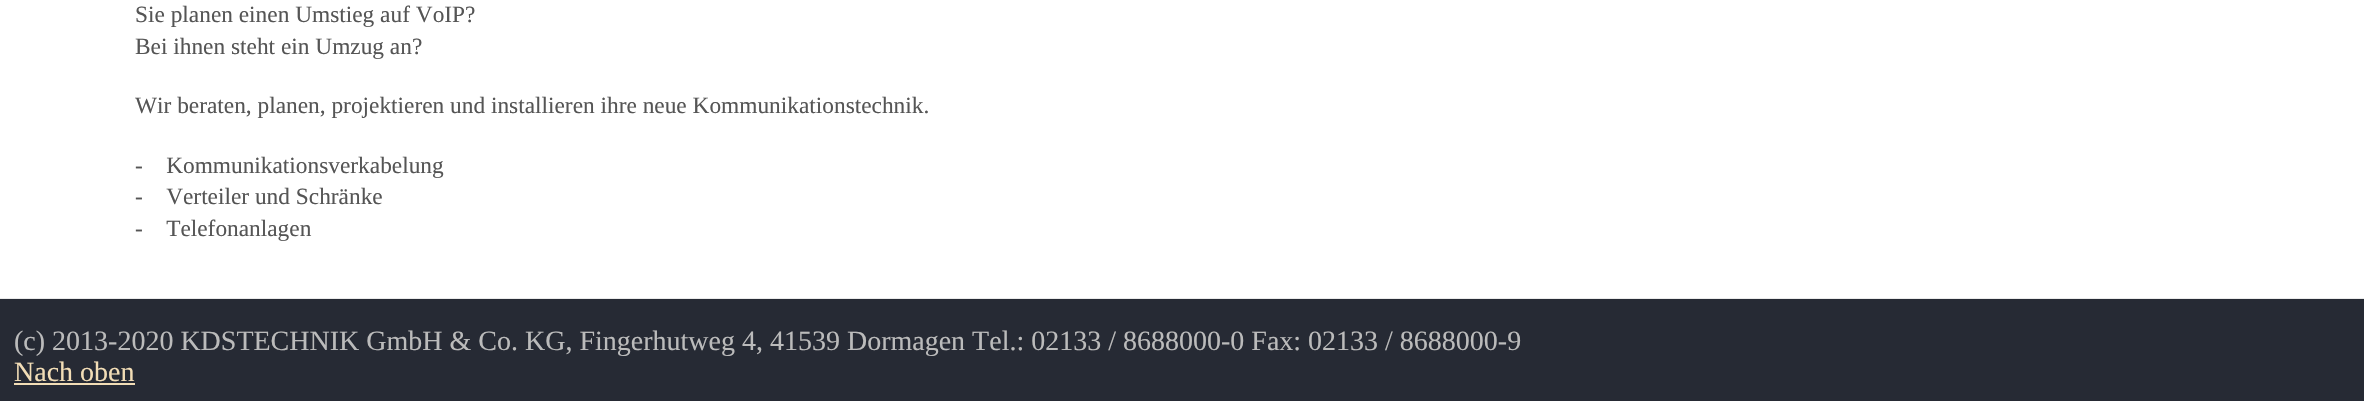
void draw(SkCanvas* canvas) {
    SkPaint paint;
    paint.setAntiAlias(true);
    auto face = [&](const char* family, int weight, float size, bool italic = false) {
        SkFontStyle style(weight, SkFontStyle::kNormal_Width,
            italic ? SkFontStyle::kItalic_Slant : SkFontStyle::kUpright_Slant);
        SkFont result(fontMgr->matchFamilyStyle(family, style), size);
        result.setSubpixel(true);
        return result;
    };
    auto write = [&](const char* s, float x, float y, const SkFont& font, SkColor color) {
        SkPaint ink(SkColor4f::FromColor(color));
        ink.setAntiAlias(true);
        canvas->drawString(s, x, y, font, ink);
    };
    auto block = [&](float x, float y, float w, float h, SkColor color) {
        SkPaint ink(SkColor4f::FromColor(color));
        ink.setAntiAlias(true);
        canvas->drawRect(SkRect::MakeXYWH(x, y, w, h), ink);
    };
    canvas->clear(SkColorSetRGB(38, 42, 52));
    paint.setStyle(SkPaint::kStroke_Style);
    paint.setStrokeWidth(2);
    paint.setColor(SkColorSetRGB(234, 234, 234));
    canvas->drawRect(SkRect::MakeXYWH(-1, -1, 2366, 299), paint);
    block(0, 0, 2364, 298, SK_ColorWHITE);
    auto kFont1 = face("Liberation Serif", 400, 23.35f);
    write("Sie planen einen Umstieg auf VoIP?", 135, 22, kFont1, SkColorSetRGB(85, 85, 85));
    write("Bei ihnen steht ein Umzug an?", 135, 54, kFont1, SkColorSetRGB(85, 85, 85));
    write("Wir beraten, planen, projektieren und installieren ihre neue Kommunikationstechnik.", 135, 113, kFont1, SkColorSetRGB(85, 85, 85));
    write("-    Kommunikationsverkabelung", 135, 173, kFont1, SkColorSetRGB(85, 85, 85));
    write("-    Verteiler und Schränke", 135, 204, kFont1, SkColorSetRGB(85, 85, 85));
    write("-    Telefonanlagen", 135, 236, kFont1, SkColorSetRGB(85, 85, 85));
    auto kFont2 = face("Liberation Serif", 400, 28);
    write("(c) 2013-2020 KDSTECHNIK GmbH & Co. KG, Fingerhutweg 4, 41539 Dormagen Tel.: 02133 / 8688000-0 Fax: 02133 / 8688000-9", 14, 350, kFont2, SkColorSetRGB(187, 187, 187));
    write("Nach oben", 14, 381, kFont2, SkColorSetRGB(242, 221, 182));
    block(14, 383, 121, 2, SkColorSetRGB(242, 221, 182));
}
